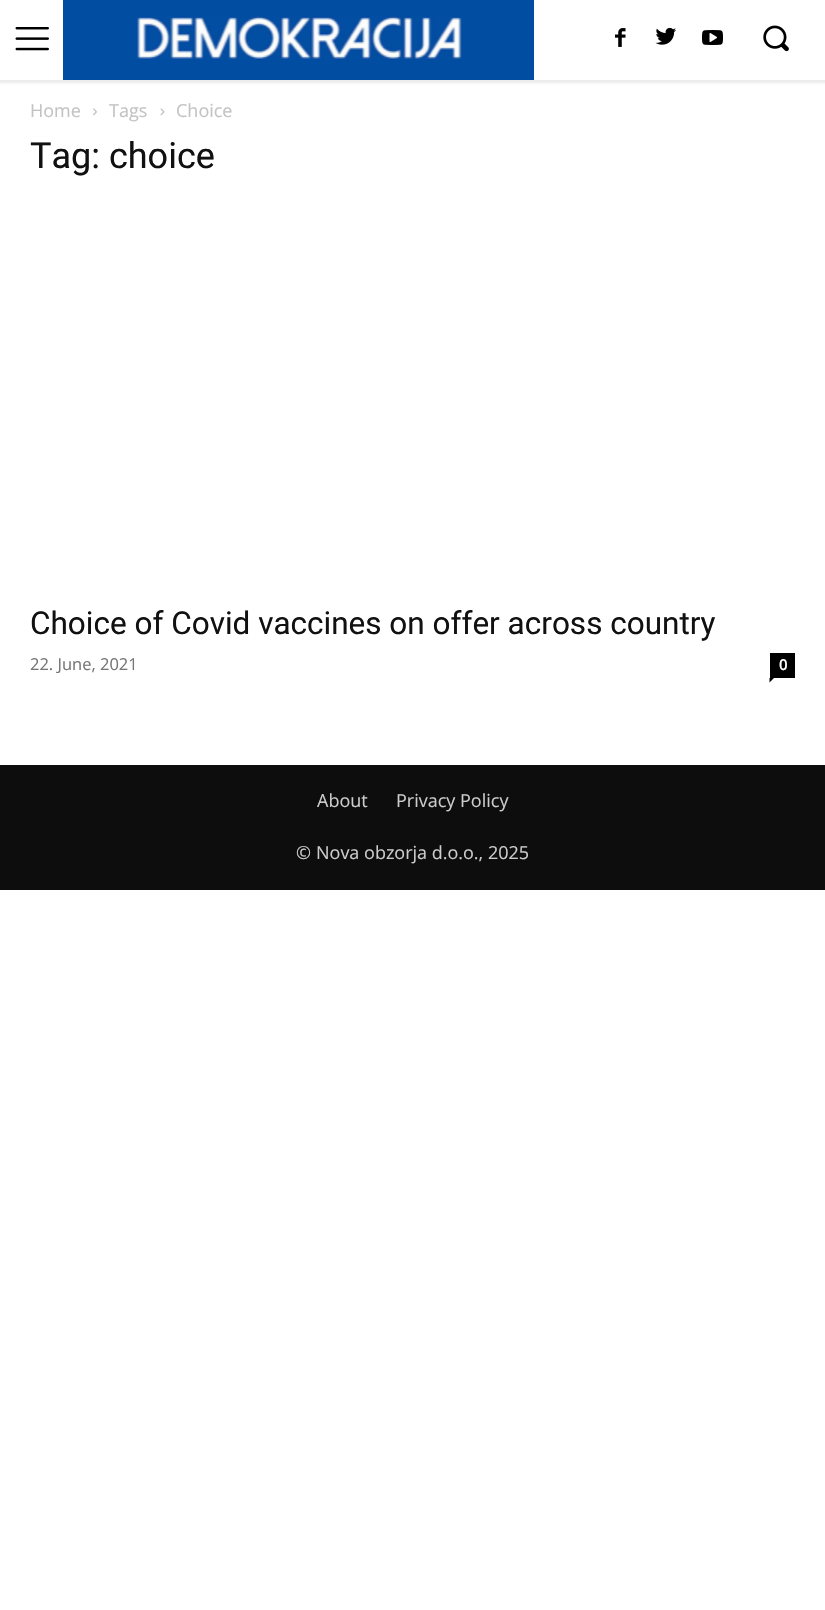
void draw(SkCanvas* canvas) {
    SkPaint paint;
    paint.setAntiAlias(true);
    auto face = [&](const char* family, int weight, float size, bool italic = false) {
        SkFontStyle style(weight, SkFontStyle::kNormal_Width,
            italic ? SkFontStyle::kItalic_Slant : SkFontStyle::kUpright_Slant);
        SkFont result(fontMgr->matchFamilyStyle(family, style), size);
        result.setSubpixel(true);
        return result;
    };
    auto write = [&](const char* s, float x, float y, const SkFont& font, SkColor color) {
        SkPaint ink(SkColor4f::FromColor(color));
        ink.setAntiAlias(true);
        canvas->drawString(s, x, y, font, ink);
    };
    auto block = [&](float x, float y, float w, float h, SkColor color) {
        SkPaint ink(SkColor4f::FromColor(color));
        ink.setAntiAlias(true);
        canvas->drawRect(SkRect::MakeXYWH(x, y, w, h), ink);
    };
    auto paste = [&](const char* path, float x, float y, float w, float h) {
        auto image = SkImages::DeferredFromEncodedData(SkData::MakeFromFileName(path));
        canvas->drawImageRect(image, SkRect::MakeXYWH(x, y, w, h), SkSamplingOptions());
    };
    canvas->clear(SK_ColorWHITE);
    paste("pic1.png", 15, 27, 34, 24);
    block(63, 0, 471, 80, SkColorSetRGB(0, 77, 161));
    paste("pic2.png", 136, 16, 326, 44);
    paste("pic3.png", 615, 28, 11, 19);
    paste("pic4.png", 655, 27, 21, 18);
    paste("pic5.png", 702, 30, 21, 15);
    paste("pic6.png", 763, 25, 26, 27);
    canvas->save();
    canvas->clipPath(SkPathBuilder(SkPathFillType::kEvenOdd).moveTo(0, 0).lineTo(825, 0).lineTo(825, 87).lineTo(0, 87).close().moveTo(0, 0).lineTo(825, 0).lineTo(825, 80).lineTo(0, 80).close().detach(), true);
    paint.setColor(SkColorSetARGB(20, 0, 0, 0));
    paint.setMaskFilter(SkMaskFilter::MakeBlur(kNormal_SkBlurStyle, 1));
    canvas->drawRect(SkRect::MakeXYWH(-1, 0, 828, 83), paint);
    paint.setMaskFilter(nullptr);
    canvas->restore();
    auto kFont1 = face("Open Sans", 400, 18);
    write("Home", 30, 117, kFont1, SkColorSetRGB(195, 195, 195));
    paste("pic7.png", 93, 108, 4, 8);
    write("Tags", 109, 117, kFont1, SkColorSetRGB(195, 195, 195));
    paste("pic8.png", 160, 108, 5, 8);
    write("Choice", 176, 117, kFont1, SkColorSetRGB(195, 195, 195));
    auto kFont2 = face("Roboto", 400, 36);
    write("Tag: choice", 30, 168, kFont2, SkColorSetRGB(17, 17, 17));
    auto kFont3 = face("Roboto", 400, 31.5f);
    write("Choice of Covid vaccines on offer across country", 30, 634, kFont3, SkColorSetRGB(17, 17, 17));
    auto kFont4 = face("Open Sans", 400, 16.5f);
    write("22. June, 2021", 30, 670, kFont4, SkColorSetRGB(118, 118, 118));
    block(770, 653, 25, 25, SK_ColorBLACK);
    auto kFont5 = face("Open Sans", 600, 15);
    write("0", 779, 670, kFont5, SK_ColorWHITE);
    paint.setColor(SK_ColorBLACK);
    canvas->drawPath(SkPathBuilder().moveTo(769.5f, 678).lineTo(774, 678).lineTo(769.5f, 682.5f).close().detach(), paint);
    block(0, 765, 825, 125, SkColorSetRGB(13, 13, 13));
    write("About", 317, 807, kFont1, SkColorSetRGB(204, 204, 204));
    write("Privacy Policy", 396, 807, kFont1, SkColorSetRGB(204, 204, 204));
    auto kFont6 = face("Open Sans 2", 400, 18);
    write("©", 296, 859, kFont6, SkColorSetRGB(204, 204, 204));
    write("Nova obzorja d.o.o., 2025", 316, 859, kFont1, SkColorSetRGB(204, 204, 204));
}
